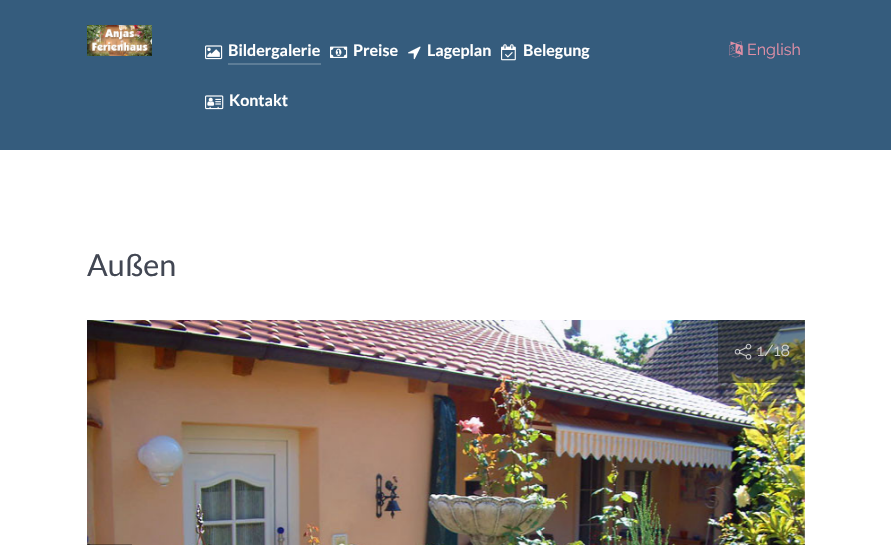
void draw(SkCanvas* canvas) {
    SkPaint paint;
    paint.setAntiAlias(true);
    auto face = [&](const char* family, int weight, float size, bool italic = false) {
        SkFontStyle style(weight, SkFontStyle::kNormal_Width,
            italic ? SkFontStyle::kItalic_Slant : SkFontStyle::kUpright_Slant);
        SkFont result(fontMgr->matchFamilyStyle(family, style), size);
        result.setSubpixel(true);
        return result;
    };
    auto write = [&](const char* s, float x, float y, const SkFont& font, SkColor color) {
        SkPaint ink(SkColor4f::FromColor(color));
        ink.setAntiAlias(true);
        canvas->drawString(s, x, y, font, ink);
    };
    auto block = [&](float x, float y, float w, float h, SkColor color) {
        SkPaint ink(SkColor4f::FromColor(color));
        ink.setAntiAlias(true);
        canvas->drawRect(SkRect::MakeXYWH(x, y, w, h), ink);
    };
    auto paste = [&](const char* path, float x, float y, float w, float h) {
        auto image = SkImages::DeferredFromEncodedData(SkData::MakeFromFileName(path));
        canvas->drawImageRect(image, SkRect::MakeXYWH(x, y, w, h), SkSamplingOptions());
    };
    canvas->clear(SK_ColorWHITE);
    block(0, 0, 891, 150, SkColorSetRGB(53, 92, 125));
    paste("pic1.png", 87, 25, 65, 31);
    paste("pic2.png", 205, 45, 18, 15);
    block(228, 63, 93, 2, SkColorSetRGB(93, 125, 151));
    auto kFont1 = face("Lato", 700, 16);
    write("Bildergalerie", 228, 56, kFont1, SK_ColorWHITE);
    paste("pic3.png", 330, 46, 18, 12);
    write("Preise", 353, 56, kFont1, SK_ColorWHITE);
    paste("pic4.png", 408, 46, 13, 14);
    write("Lageplan", 427, 56, kFont1, SK_ColorWHITE);
    paste("pic5.png", 501, 44, 15, 17);
    write("Belegung", 523, 56, kFont1, SK_ColorWHITE);
    paste("pic6.png", 205, 95, 19, 15);
    write("Kontakt", 229, 106, kFont1, SK_ColorWHITE);
    paste("pic7.png", 729, 41, 14, 17);
    auto kFont2 = face("Raleway", 400, 16);
    write("English", 747, 55, kFont2, SkColorSetRGB(224, 143, 166));
    auto kFont3 = face("Lato", 400, 30.5f);
    write("Außen", 87, 276, kFont3, SkColorSetRGB(66, 71, 83));
    paste("pic8.png", 87, 320, 718, 225);
    block(718, 320, 87, 63, SkColorSetARGB(128, 34, 34, 34));
    paste("pic9.png", 734, 343, 18, 17);
    write("1", 757, 356, kFont2, SkColorSetRGB(201, 199, 199));
    write("/18", 764, 356, kFont2, SkColorSetRGB(208, 211, 205));
    block(87, 544, 45, 1, SkColorSetARGB(77, 0, 0, 0));
    block(760, 544, 45, 1, SkColorSetARGB(77, 0, 0, 0));
}
